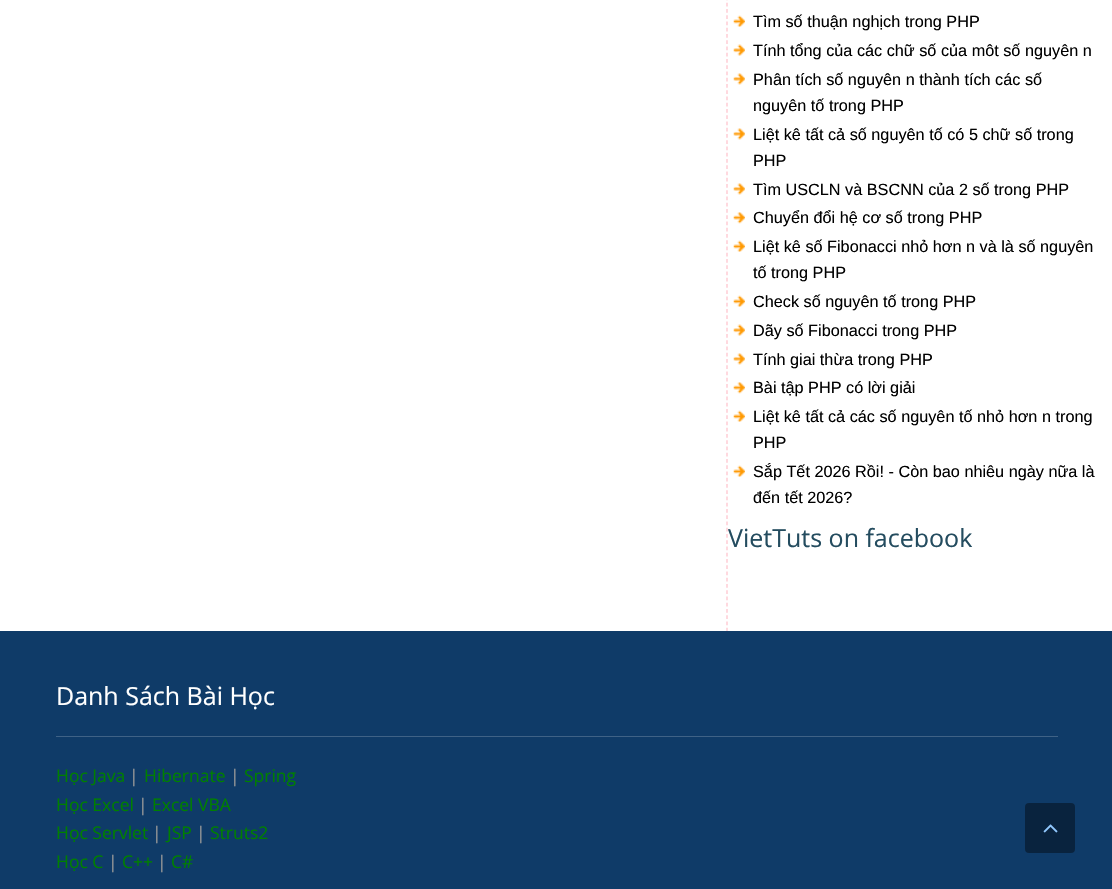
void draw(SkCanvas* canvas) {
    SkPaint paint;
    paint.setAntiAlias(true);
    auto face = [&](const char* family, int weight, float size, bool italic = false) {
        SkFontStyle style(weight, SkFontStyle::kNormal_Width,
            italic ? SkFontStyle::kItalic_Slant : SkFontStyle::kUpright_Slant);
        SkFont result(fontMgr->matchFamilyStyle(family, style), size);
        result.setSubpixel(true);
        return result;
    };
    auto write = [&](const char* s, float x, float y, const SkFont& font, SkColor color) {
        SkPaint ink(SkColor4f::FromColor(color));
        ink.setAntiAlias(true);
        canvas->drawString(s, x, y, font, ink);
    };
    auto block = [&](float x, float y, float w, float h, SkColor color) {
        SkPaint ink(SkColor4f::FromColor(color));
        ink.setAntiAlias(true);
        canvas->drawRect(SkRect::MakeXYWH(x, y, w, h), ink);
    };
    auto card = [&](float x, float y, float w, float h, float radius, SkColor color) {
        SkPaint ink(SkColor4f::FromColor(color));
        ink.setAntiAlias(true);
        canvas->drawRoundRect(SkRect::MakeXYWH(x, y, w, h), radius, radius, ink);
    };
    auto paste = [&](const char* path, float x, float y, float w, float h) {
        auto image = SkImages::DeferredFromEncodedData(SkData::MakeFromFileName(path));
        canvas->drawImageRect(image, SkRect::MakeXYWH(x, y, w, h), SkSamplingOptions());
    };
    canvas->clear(SK_ColorWHITE);
    paint.setStyle(SkPaint::kStroke_Style);
    paint.setStrokeWidth(1.2f);
    paint.setColor(SkColorSetRGB(255, 192, 203));
    paint.setPathEffect(SkDashPathEffect::Make({{3.75f, 2.5f}}, 0));
    canvas->drawPath(SkPathBuilder().moveTo(727, -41).lineTo(727, 631).detach(), paint);
    paint.setPathEffect(nullptr);
    paste("pic1.png", 733, 15, 12, 12);
    auto kFont1 = face("Liberation Sans", 400, 16.25f);
    write("Tìm số thuận nghịch trong PHP", 753, 27, kFont1, SK_ColorBLACK);
    paste("pic2.png", 733, 44, 12, 12);
    write("Tính tổng của các chữ số của môt số nguyên n", 753, 56, kFont1, SK_ColorBLACK);
    paste("pic3.png", 733, 73, 12, 12);
    write("Phân tích số nguyên n thành tích các số", 753, 85, kFont1, SK_ColorBLACK);
    write("nguyên tố trong PHP", 753, 111, kFont1, SK_ColorBLACK);
    paste("pic3.png", 733, 128, 12, 12);
    write("Liệt kê tất cả số nguyên tố có 5 chữ số trong", 753, 140, kFont1, SK_ColorBLACK);
    write("PHP", 753, 166, kFont1, SK_ColorBLACK);
    paste("pic3.png", 733, 183, 12, 12);
    write("Tìm USCLN và BSCNN của 2 số trong PHP", 753, 195, kFont1, SK_ColorBLACK);
    paste("pic4.png", 733, 212, 12, 12);
    write("Chuyển đổi hệ cơ số trong PHP", 753, 223, kFont1, SK_ColorBLACK);
    paste("pic1.png", 733, 240, 12, 12);
    write("Liệt kê số Fibonacci nhỏ hơn n và là số nguyên", 753, 252, kFont1, SK_ColorBLACK);
    write("tố trong PHP", 753, 278, kFont1, SK_ColorBLACK);
    paste("pic1.png", 733, 295, 12, 12);
    write("Check số nguyên tố trong PHP", 753, 307, kFont1, SK_ColorBLACK);
    paste("pic2.png", 733, 324, 12, 12);
    write("Dãy số Fibonacci trong PHP", 753, 336, kFont1, SK_ColorBLACK);
    paste("pic3.png", 733, 353, 12, 12);
    write("Tính giai thừa trong PHP", 753, 365, kFont1, SK_ColorBLACK);
    paste("pic4.png", 733, 382, 12, 12);
    write("Bài tập PHP có lời giải", 753, 393, kFont1, SK_ColorBLACK);
    paste("pic5.png", 733, 410, 12, 12);
    write("Liệt kê tất cả các số nguyên tố nhỏ hơn n trong", 753, 422, kFont1, SK_ColorBLACK);
    write("PHP", 753, 448, kFont1, SK_ColorBLACK);
    paste("pic1.png", 733, 465, 12, 12);
    write("Sắp Tết 2026 Rồi! - Còn bao nhiêu ngày nữa là", 753, 477, kFont1, SK_ColorBLACK);
    write("đến tết 2026?", 753, 503, kFont1, SK_ColorBLACK);
    auto kFont2 = face("Open Sans", 400, 25);
    write("VietTuts on facebook", 728, 547, kFont2, SkColorSetRGB(36, 76, 95));
    block(0, 631, 1112, 258, SkColorSetRGB(15, 59, 104));
    block(56, 736, 1002, 1, SkColorSetRGB(63, 98, 134));
    write("Danh Sách Bài Học", 56, 705, kFont2, SK_ColorWHITE);
    auto kFont3 = face("Open Sans", 400, 17.5f);
    write("Học Java", 56, 782, kFont3, SkColorSetRGB(0, 128, 0));
    write("|", 129, 782, kFont3, SkColorSetRGB(153, 153, 153));
    write("Hibernate", 144, 782, kFont3, SkColorSetRGB(0, 128, 0));
    write("|", 230, 782, kFont3, SkColorSetRGB(153, 153, 153));
    write("Spring", 244, 782, kFont3, SkColorSetRGB(0, 128, 0));
    write("Học Excel", 56, 811, kFont3, SkColorSetRGB(0, 128, 0));
    write("|", 138, 811, kFont3, SkColorSetRGB(153, 153, 153));
    write("Excel VBA", 152, 811, kFont3, SkColorSetRGB(0, 128, 0));
    write("Học Servlet", 56, 839, kFont3, SkColorSetRGB(0, 128, 0));
    write("|", 152, 839, kFont3, SkColorSetRGB(153, 153, 153));
    write("JSP", 167, 839, kFont3, SkColorSetRGB(0, 128, 0));
    write("|", 196, 839, kFont3, SkColorSetRGB(153, 153, 153));
    write("Struts2", 210, 839, kFont3, SkColorSetRGB(0, 128, 0));
    write("Học C", 56, 868, kFont3, SkColorSetRGB(0, 128, 0));
    write("|", 108, 868, kFont3, SkColorSetRGB(153, 153, 153));
    write("C++", 122, 868, kFont3, SkColorSetRGB(0, 128, 0));
    write("|", 157, 868, kFont3, SkColorSetRGB(153, 153, 153));
    write("C#", 171, 868, kFont3, SkColorSetRGB(0, 128, 0));
    card(1025, 803, 50, 50, 4, SkColorSetRGB(9, 35, 62));
    paste("pic6.png", 1043, 824, 15, 9);
}
